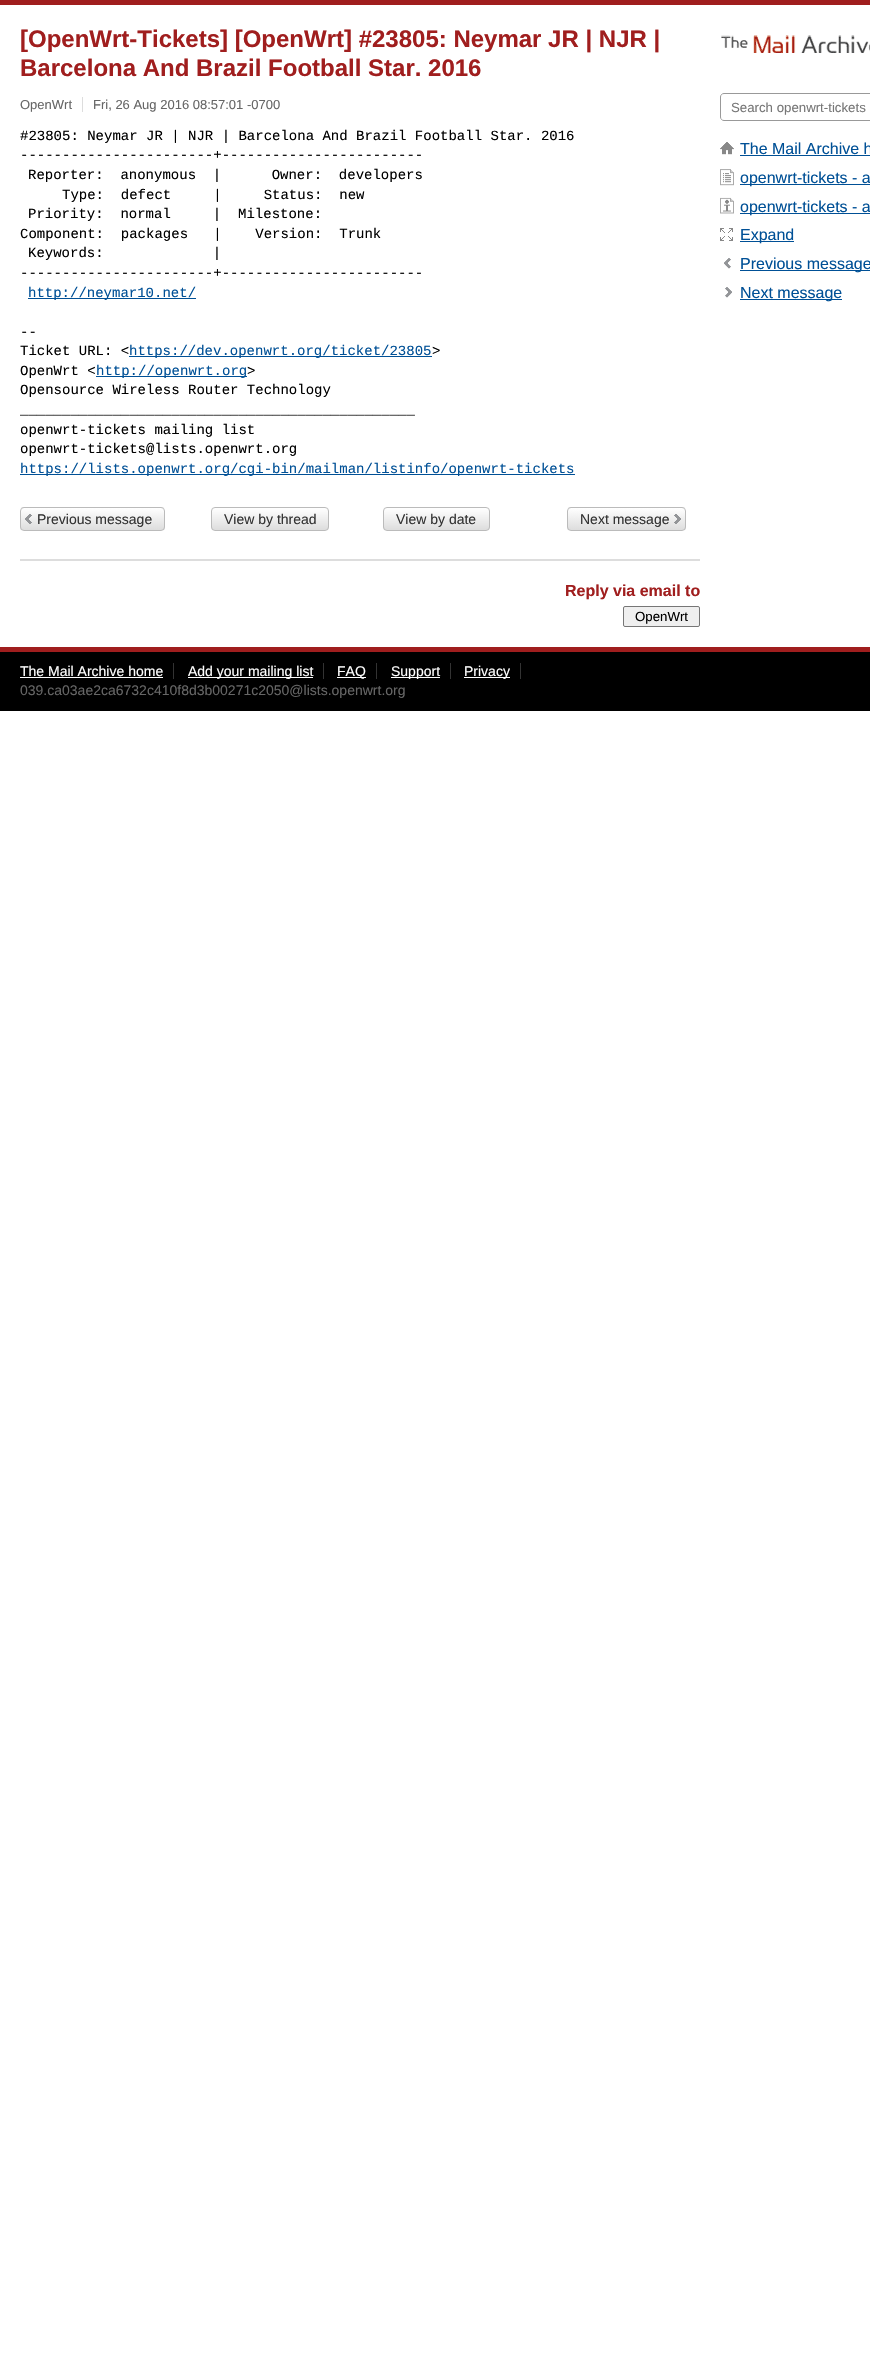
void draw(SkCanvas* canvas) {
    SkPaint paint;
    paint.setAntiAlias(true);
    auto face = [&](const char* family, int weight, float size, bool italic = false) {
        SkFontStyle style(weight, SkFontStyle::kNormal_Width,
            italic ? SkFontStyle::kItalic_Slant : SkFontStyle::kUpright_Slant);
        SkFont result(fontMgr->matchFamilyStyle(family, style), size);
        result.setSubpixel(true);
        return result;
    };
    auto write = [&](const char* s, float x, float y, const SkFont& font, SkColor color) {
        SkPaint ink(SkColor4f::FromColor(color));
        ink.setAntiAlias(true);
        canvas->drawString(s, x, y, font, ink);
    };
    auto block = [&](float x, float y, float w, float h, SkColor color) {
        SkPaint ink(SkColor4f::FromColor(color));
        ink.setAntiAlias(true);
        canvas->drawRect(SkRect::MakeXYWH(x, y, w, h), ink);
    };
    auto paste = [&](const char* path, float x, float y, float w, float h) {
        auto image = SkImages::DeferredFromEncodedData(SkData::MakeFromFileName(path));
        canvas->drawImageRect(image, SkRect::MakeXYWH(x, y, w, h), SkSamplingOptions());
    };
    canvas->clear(SK_ColorWHITE);
    block(0, 0, 870, 5, SkColorSetRGB(160, 30, 30));
    auto kFont1 = face("Liberation Sans", 700, 24);
    write("[OpenWrt-Tickets] [OpenWrt] #23805: Neymar JR | NJR |", 20, 47, kFont1, SkColorSetRGB(160, 30, 30));
    write("Barcelona And Brazil Football Star. 2016", 20, 76, kFont1, SkColorSetRGB(160, 30, 30));
    auto kFont2 = face("Liberation Sans", 400, 13);
    write("OpenWrt", 20, 109, kFont2, SkColorSetRGB(102, 102, 102));
    block(82, 97, 1, 15, SkColorSetRGB(221, 221, 221));
    write("Fri, 26 Aug 2016 08:57:01 -0700", 93, 109, kFont2, SkColorSetRGB(102, 102, 102));
    auto kFont3 = face("Liberation Mono", 400, 14);
    write("#23805: Neymar JR | NJR | Barcelona And Brazil Football Star. 2016", 20, 140, kFont3, SK_ColorBLACK);
    write("-----------------------+------------------------", 20, 159, kFont3, SK_ColorBLACK);
    write("Reporter:  anonymous  |      Owner:  developers", 28, 179, kFont3, SK_ColorBLACK);
    write("Type:  defect     |     Status:  new", 62, 199, kFont3, SK_ColorBLACK);
    write("Priority:  normal     |  Milestone:", 28, 218, kFont3, SK_ColorBLACK);
    write("Component:  packages   |    Version:  Trunk", 20, 238, kFont3, SK_ColorBLACK);
    write("Keywords:             |", 28, 257, kFont3, SK_ColorBLACK);
    write("-----------------------+------------------------", 20, 277, kFont3, SK_ColorBLACK);
    block(28, 298, 168, 1, SkColorSetRGB(0, 80, 150));
    write("http://neymar10.net/", 28, 297, kFont3, SkColorSetRGB(0, 80, 150));
    write("--", 20, 336, kFont3, SK_ColorBLACK);
    write("Ticket URL: <", 20, 355, kFont3, SK_ColorBLACK);
    block(129, 356, 303, 1, SkColorSetRGB(0, 80, 150));
    write("https://dev.openwrt.org/ticket/23805", 129, 355, kFont3, SkColorSetRGB(0, 80, 150));
    write(">", 432, 355, kFont3, SK_ColorBLACK);
    write("OpenWrt <", 20, 375, kFont3, SK_ColorBLACK);
    block(96, 376, 151, 1, SkColorSetRGB(0, 80, 150));
    write("http://openwrt.org", 96, 375, kFont3, SkColorSetRGB(0, 80, 150));
    write(">", 247, 375, kFont3, SK_ColorBLACK);
    write("Opensource Wireless Router Technology", 20, 394, kFont3, SK_ColorBLACK);
    write("_______________________________________________", 20, 414, kFont3, SK_ColorBLACK);
    write("openwrt-tickets mailing list", 20, 434, kFont3, SK_ColorBLACK);
    write("openwrt-tickets@lists.openwrt.org", 20, 453, kFont3, SK_ColorBLACK);
    block(20, 474, 555, 1, SkColorSetRGB(0, 80, 150));
    write("https://lists.openwrt.org/cgi-bin/mailman/listinfo/openwrt-tickets", 20, 473, kFont3, SkColorSetRGB(0, 80, 150));
    paste("pic1.png", 20, 507, 145, 24);
    paint.setStyle(SkPaint::kStroke_Style);
    paint.setStrokeWidth(1);
    paint.setColor(SkColorSetRGB(187, 187, 187));
    canvas->drawRoundRect(SkRect::MakeXYWH(20.5f, 507.5f, 144, 23), 3.5f, 3.5f, paint);
    auto kFont4 = face("Liberation Sans", 400, 14);
    write("Previous message", 37, 524, kFont4, SkColorSetRGB(51, 51, 51));
    canvas->save();
    canvas->clipPath(SkPathBuilder().moveTo(215, 507).lineTo(325, 507).cubicTo(327, 507, 329, 509, 329, 511).lineTo(329, 527).cubicTo(329, 529, 327, 531, 325, 531).lineTo(215, 531).cubicTo(213, 531, 211, 529, 211, 527).lineTo(211, 511).cubicTo(211, 509, 213, 507, 215, 507).close().detach(), true);
    paint.setStyle(SkPaint::kFill_Style);
    {
        const SkColor colors[] = {SK_ColorWHITE, SkColorSetRGB(221, 221, 221)};
        const float stops[] = {0, 1};
        const SkPoint ends[] = {{270, 508}, {270, 530}};
        paint.setShader(SkGradientShader::MakeLinear(ends, colors, stops, 2, SkTileMode::kClamp));
        paint.setAlpha(255);
    }
    canvas->drawRect(SkRect::MakeXYWH(211, 508, 118, 22), paint);
    canvas->restore();
    paint.setStyle(SkPaint::kStroke_Style);
    paint.setShader(nullptr);
    paint.setColor(SkColorSetRGB(187, 187, 187));
    canvas->drawRoundRect(SkRect::MakeXYWH(211.5f, 507.5f, 117, 23), 3.5f, 3.5f, paint);
    write("View by thread", 224, 524, kFont4, SkColorSetRGB(51, 51, 51));
    canvas->save();
    canvas->clipPath(SkPathBuilder().moveTo(387, 507).lineTo(486, 507).cubicTo(488, 507, 490, 509, 490, 511).lineTo(490, 527).cubicTo(490, 529, 488, 531, 486, 531).lineTo(387, 531).cubicTo(385, 531, 383, 529, 383, 527).lineTo(383, 511).cubicTo(383, 509, 385, 507, 387, 507).close().detach(), true);
    paint.setStyle(SkPaint::kFill_Style);
    {
        const SkColor colors[] = {SK_ColorWHITE, SkColorSetRGB(221, 221, 221)};
        const float stops[] = {0, 1};
        const SkPoint ends[] = {{437, 508}, {437, 530}};
        paint.setShader(SkGradientShader::MakeLinear(ends, colors, stops, 2, SkTileMode::kClamp));
        paint.setAlpha(255);
    }
    canvas->drawRect(SkRect::MakeXYWH(383, 508, 107, 22), paint);
    canvas->restore();
    paint.setStyle(SkPaint::kStroke_Style);
    paint.setShader(nullptr);
    paint.setColor(SkColorSetRGB(187, 187, 187));
    canvas->drawRoundRect(SkRect::MakeXYWH(383.5f, 507.5f, 106, 23), 3.5f, 3.5f, paint);
    write("View by date", 396, 524, kFont4, SkColorSetRGB(51, 51, 51));
    paste("pic2.png", 567, 507, 119, 24);
    canvas->drawRoundRect(SkRect::MakeXYWH(567.5f, 507.5f, 118, 23), 3.5f, 3.5f, paint);
    write("Next message", 580, 524, kFont4, SkColorSetRGB(51, 51, 51));
    block(20, 559, 680, 2, SkColorSetRGB(221, 221, 221));
    auto kFont5 = face("Liberation Sans", 700, 16);
    write("Reply via email to", 565, 596, kFont5, SkColorSetRGB(160, 30, 30));
    paint.setStyle(SkPaint::kFill_Style);
    paint.setColor(SkColorSetRGB(239, 239, 239));
    canvas->drawRoundRect(SkRect::MakeXYWH(623.5f, 606.5f, 76, 20), 1.5f, 1.5f, paint);
    paint.setStyle(SkPaint::kStroke_Style);
    paint.setColor(SkColorSetRGB(118, 118, 118));
    canvas->drawRoundRect(SkRect::MakeXYWH(623.5f, 606.5f, 76, 20), 1.5f, 1.5f, paint);
    auto kFont6 = face("Liberation Sans", 400, 13.25f);
    write("OpenWrt", 635, 621, kFont6, SK_ColorBLACK);
    paste("pic3.png", 721, 35, 149, 18);
    paint.setColor(SkColorSetRGB(153, 153, 153));
    canvas->drawPath(SkPathBuilder().moveTo(724, 93.5f).lineTo(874.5f, 93.5f).lineTo(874.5f, 120.5f).lineTo(724, 120.5f).cubicTo(722, 120.5f, 720.5f, 119, 720.5f, 117).lineTo(720.5f, 97).cubicTo(720.5f, 95, 722, 93.5f, 724, 93.5f).close().detach(), paint);
    write("Search openwrt-tickets", 731, 112, kFont6, SkColorSetRGB(119, 119, 119));
    paste("pic4.png", 720, 142, 14, 13);
    auto kFont7 = face("Liberation Sans", 400, 16);
    write("The Mail Archive h", 740, 154, kFont7, SkColorSetRGB(0, 80, 150));
    block(740, 155, 130, 1, SkColorSetRGB(0, 80, 150));
    paste("pic5.png", 720, 169, 14, 17);
    block(740, 184, 130, 1, SkColorSetRGB(0, 80, 150));
    write("openwrt-tickets - a", 740, 183, kFont7, SkColorSetRGB(0, 80, 150));
    paste("pic6.png", 720, 197, 14, 17);
    block(740, 213, 130, 1, SkColorSetRGB(0, 80, 150));
    write("openwrt-tickets - a", 740, 212, kFont7, SkColorSetRGB(0, 80, 150));
    paste("pic7.png", 720, 228, 13, 13);
    block(740, 241, 54, 1, SkColorSetRGB(0, 80, 150));
    write("Expand", 740, 240, kFont7, SkColorSetRGB(0, 80, 150));
    paste("pic8.png", 724, 258, 7, 11);
    block(740, 270, 130, 1, SkColorSetRGB(0, 80, 150));
    write("Previous message", 740, 269, kFont7, SkColorSetRGB(0, 80, 150));
    paste("pic9.png", 725, 287, 7, 11);
    block(740, 299, 102, 1, SkColorSetRGB(0, 80, 150));
    write("Next message", 740, 298, kFont7, SkColorSetRGB(0, 80, 150));
    block(0, 652, 870, 59, SK_ColorBLACK);
    block(0, 647, 870, 5, SkColorSetRGB(160, 30, 30));
    write("The Mail Archive home", 20, 676, kFont4, SK_ColorWHITE);
    block(173, 663, 1, 16, SkColorSetRGB(51, 51, 51));
    block(20, 677, 143, 1, SK_ColorWHITE);
    block(188, 677, 125, 1, SK_ColorWHITE);
    write("Add your mailing list", 188, 676, kFont4, SK_ColorWHITE);
    block(323, 663, 1, 16, SkColorSetRGB(51, 51, 51));
    block(337, 677, 29, 1, SK_ColorWHITE);
    write("FAQ", 337, 676, kFont4, SK_ColorWHITE);
    block(376, 663, 1, 16, SkColorSetRGB(51, 51, 51));
    block(391, 677, 49, 1, SK_ColorWHITE);
    write("Support", 391, 676, kFont4, SK_ColorWHITE);
    block(450, 663, 1, 16, SkColorSetRGB(51, 51, 51));
    block(464, 677, 46, 1, SK_ColorWHITE);
    write("Privacy", 464, 676, kFont4, SK_ColorWHITE);
    block(520, 663, 1, 16, SkColorSetRGB(51, 51, 51));
    write("039.ca03ae2ca6732c410f8d3b00271c2050@lists.openwrt.org", 20, 695, kFont4, SkColorSetRGB(102, 102, 102));
}
